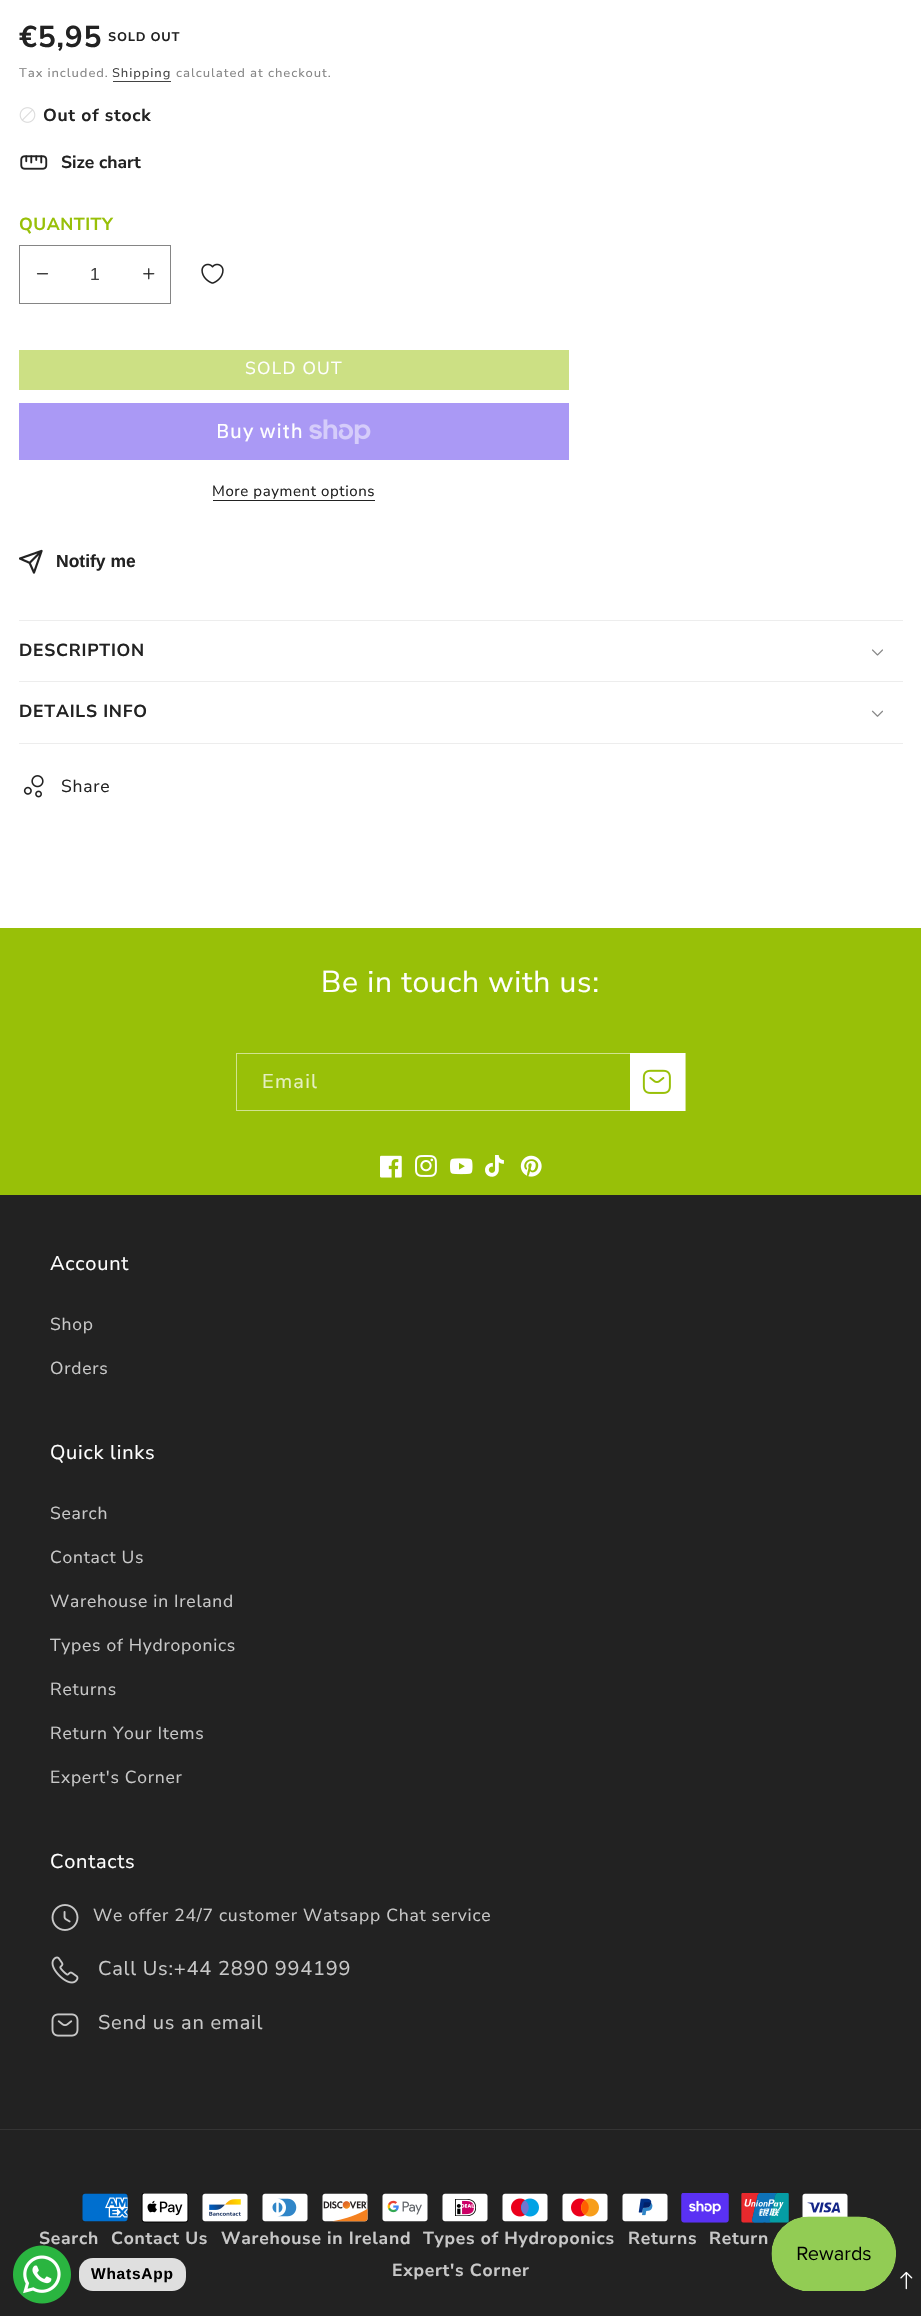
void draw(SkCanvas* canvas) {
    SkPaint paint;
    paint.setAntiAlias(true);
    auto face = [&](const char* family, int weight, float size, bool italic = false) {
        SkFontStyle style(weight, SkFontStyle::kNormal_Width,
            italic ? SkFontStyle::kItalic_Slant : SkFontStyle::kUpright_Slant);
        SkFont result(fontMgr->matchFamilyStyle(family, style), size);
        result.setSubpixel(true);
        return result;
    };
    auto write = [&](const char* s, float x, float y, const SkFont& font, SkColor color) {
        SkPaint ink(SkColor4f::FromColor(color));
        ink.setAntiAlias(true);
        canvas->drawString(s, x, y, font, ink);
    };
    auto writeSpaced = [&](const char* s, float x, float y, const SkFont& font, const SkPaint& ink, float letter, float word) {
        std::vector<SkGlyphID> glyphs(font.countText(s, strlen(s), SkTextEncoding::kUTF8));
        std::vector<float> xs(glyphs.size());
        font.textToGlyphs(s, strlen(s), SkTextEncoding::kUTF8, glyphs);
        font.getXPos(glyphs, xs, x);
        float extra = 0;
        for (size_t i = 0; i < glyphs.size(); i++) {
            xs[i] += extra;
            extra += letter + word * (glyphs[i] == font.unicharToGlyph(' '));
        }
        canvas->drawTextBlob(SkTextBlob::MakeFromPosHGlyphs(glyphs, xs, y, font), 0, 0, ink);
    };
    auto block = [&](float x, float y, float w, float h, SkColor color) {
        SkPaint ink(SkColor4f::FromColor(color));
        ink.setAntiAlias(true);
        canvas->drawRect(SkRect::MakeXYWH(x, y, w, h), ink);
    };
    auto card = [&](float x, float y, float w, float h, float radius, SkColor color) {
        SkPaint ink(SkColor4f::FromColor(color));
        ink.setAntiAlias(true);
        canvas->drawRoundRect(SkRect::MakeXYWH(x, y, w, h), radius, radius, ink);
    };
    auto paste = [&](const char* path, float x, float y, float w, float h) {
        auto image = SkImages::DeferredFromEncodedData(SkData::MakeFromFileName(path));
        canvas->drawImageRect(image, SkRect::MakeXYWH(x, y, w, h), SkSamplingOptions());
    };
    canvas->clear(SK_ColorWHITE);
    auto kFont1 = face("Nunito Sans", 700, 30);
    paint.setColor(SkColorSetRGB(34, 34, 34));
    writeSpaced("€5,95", 19, 47, kFont1, paint, 0.75f, 0);
    auto kFont2 = face("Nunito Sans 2", 700, 12.5f);
    writeSpaced("SOLD OUT", 108, 41, kFont2, paint, 0.75f, 0);
    auto kFont3 = face("Nunito Sans 2", 400, 12.5f);
    paint.setColor(SkColorSetRGB(133, 133, 133));
    writeSpaced("Tax included.", 19, 77, kFont3, paint, 0.9f, 0);
    paint.setColor(SkColorSetRGB(67, 67, 67));
    writeSpaced("Shipping", 112, 77, kFont3, paint, 0.9f, 0);
    block(113, 81, 58, 1, SkColorSetRGB(67, 67, 67));
    paint.setColor(SkColorSetRGB(133, 133, 133));
    writeSpaced("calculated at checkout.", 176, 77, kFont3, paint, 0.9f, 0);
    paste("pic1.png", 19, 107, 17, 16);
    auto kFont4 = face("Nunito Sans", 700, 17.5f);
    paint.setColor(SkColorSetRGB(34, 34, 34));
    writeSpaced("Out of stock", 43, 121, kFont4, paint, 0.75f, 0);
    paste("pic2.png", 20, 155, 28, 15);
    write("Size chart", 61, 168, kFont4, SkColorSetRGB(34, 34, 34));
    paint.setColor(SkColorSetRGB(152, 192, 8));
    writeSpaced("QUANTITY", 19, 230, kFont4, paint, 0.5f, 0);
    paste("pic3.png", 36, 273, 13, 2);
    paste("pic4.png", 143, 268, 12, 12);
    paint.setStyle(SkPaint::kStroke_Style);
    paint.setStrokeWidth(1);
    paint.setColor(SkColorSetRGB(133, 133, 133));
    canvas->drawRect(SkRect::MakeXYWH(19.5f, 245.5f, 151, 58), paint);
    auto kFont5 = face("Liberation Sans", 400, 17.5f);
    write("1", 90, 280, kFont5, SkColorSetRGB(67, 67, 67));
    paste("pic5.png", 201, 263, 23, 21);
    block(19, 350, 550, 40, SkColorSetRGB(204, 224, 132));
    auto kFont6 = face("Nunito Sans", 400, 17.5f);
    paint.setStyle(SkPaint::kFill_Style);
    paint.setColor(SK_ColorWHITE);
    writeSpaced("SOLD OUT", 245, 374, kFont6, paint, 1.25f, 0);
    block(19, 403, 550, 57, SkColorSetRGB(170, 153, 245));
    auto kFont7 = face("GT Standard", 400, 20);
    writeSpaced("Buy with", 216, 438, kFont7, paint, 0.75f, 0);
    paste("pic6.png", 309, 419, 62, 25);
    auto kFont8 = face("Nunito Sans", 400, 15);
    paint.setColor(SkColorSetRGB(34, 34, 34));
    writeSpaced("More payment options", 212, 496, kFont8, paint, 0.6f, 0);
    block(213, 500, 162, 1, SkColorSetRGB(34, 34, 34));
    paste("pic7.png", 19, 549, 24, 25);
    auto kFont9 = face("Liberation Sans", 700, 17.5f);
    write("Notify me", 56, 567, kFont9, SkColorSetRGB(34, 34, 34));
    block(19, 620, 884, 1, SkColorSetRGB(237, 237, 237));
    block(19, 681, 884, 1, SkColorSetRGB(237, 237, 237));
    writeSpaced("DESCRIPTION", 19, 656, kFont4, paint, 0.75f, 0);
    paste("pic8.png", 872, 649, 11, 7);
    block(19, 743, 884, 1, SkColorSetRGB(237, 237, 237));
    writeSpaced("DETAILS INFO", 19, 717, kFont4, paint, 0.75f, 0);
    paste("pic9.png", 871, 710, 12, 7);
    paste("pic10.png", 23, 775, 21, 23);
    writeSpaced("Share", 61, 792, kFont6, paint, 0.75f, 0);
    block(0, 928, 921, 267, SkColorSetRGB(152, 192, 8));
    auto kFont10 = face("Nunito Sans", 400, 30);
    paint.setColor(SK_ColorWHITE);
    writeSpaced("Be in touch with us:", 321, 992, kFont10, paint, 0.75f, 0);
    paint.setStyle(SkPaint::kStroke_Style);
    paint.setColor(SkColorSetRGB(209, 227, 144));
    canvas->drawRect(SkRect::MakeXYWH(236.5f, 1053.5f, 449, 57), paint);
    auto kFont11 = face("Nunito Sans", 400, 20);
    paint.setStyle(SkPaint::kFill_Style);
    paint.setColor(SkColorSetRGB(229, 239, 193));
    writeSpaced("Email", 262, 1088, kFont11, paint, 1.25f, 0);
    block(630, 1053, 55, 58, SK_ColorWHITE);
    paste("pic11.png", 642, 1069, 29, 25);
    paste("pic12.png", 380, 1155, 22, 23);
    paste("pic13.png", 415, 1155, 22, 22);
    paste("pic14.png", 450, 1158, 23, 17);
    paste("pic15.png", 485, 1155, 19, 22);
    paste("pic16.png", 520, 1155, 22, 22);
    block(0, 1195, 921, 1121, SkColorSetRGB(34, 34, 34));
    paint.setColor(SK_ColorWHITE);
    writeSpaced("Account", 50, 1270, kFont11, paint, 0.75f, 0);
    paint.setColor(SkColorSetRGB(200, 200, 200));
    writeSpaced("Shop", 50, 1330, kFont6, paint, 0.75f, 0);
    writeSpaced("Orders", 50, 1374, kFont6, paint, 0.75f, 0);
    paint.setColor(SK_ColorWHITE);
    writeSpaced("Quick links", 50, 1459, kFont11, paint, 0.75f, 0);
    paint.setColor(SkColorSetRGB(200, 200, 200));
    writeSpaced("Search", 50, 1519, kFont6, paint, 0.75f, 0);
    writeSpaced("Contact Us", 50, 1563, kFont6, paint, 0.75f, 0);
    writeSpaced("Warehouse in Ireland", 50, 1607, kFont6, paint, 0.75f, 0);
    writeSpaced("Types of Hydroponics", 50, 1651, kFont6, paint, 0.75f, 0);
    writeSpaced("Returns", 50, 1695, kFont6, paint, 0.75f, 0);
    writeSpaced("Return Your Items", 50, 1739, kFont6, paint, 0.75f, 0);
    writeSpaced("Expert's Corner", 50, 1783, kFont6, paint, 0.75f, 0);
    paint.setColor(SK_ColorWHITE);
    writeSpaced("Contacts", 50, 1868, kFont11, paint, 0.75f, 0);
    paste("pic17.png", 51, 1904, 28, 27);
    paint.setColor(SkColorSetRGB(200, 200, 200));
    writeSpaced("We offer 24/7 customer Watsapp Chat service", 93, 1921, kFont6, paint, 0.75f, 0);
    paste("pic18.png", 51, 1956, 28, 28);
    writeSpaced("Call Us:+44 2890 994199", 98, 1975, kFont11, paint, 0.75f, 0);
    paste("pic19.png", 51, 2013, 28, 24);
    writeSpaced("Send us an email", 98, 2029, kFont11, paint, 0.75f, 0);
    block(0, 2129, 921, 1, SkColorSetRGB(52, 52, 52));
    paste("pic20.png", 82, 2193, 46, 29);
    paste("pic21.png", 141, 2193, 48, 30);
    paste("pic22.png", 202, 2193, 46, 29);
    paste("pic23.png", 262, 2193, 46, 29);
    paste("pic24.png", 322, 2193, 46, 29);
    paste("pic25.png", 382, 2193, 46, 29);
    paste("pic26.png", 442, 2193, 46, 29);
    paste("pic27.png", 502, 2193, 46, 29);
    paste("pic28.png", 562, 2193, 46, 29);
    paste("pic29.png", 622, 2193, 46, 29);
    paste("pic30.png", 681, 2193, 48, 30);
    paste("pic31.png", 741, 2193, 48, 30);
    paste("pic32.png", 802, 2193, 46, 24);
    writeSpaced("Search", 39, 2244, kFont4, paint, 0.75f, 0);
    writeSpaced("Contact Us", 111, 2244, kFont4, paint, 0.75f, 0);
    writeSpaced("Warehouse in Ireland", 221, 2244, kFont4, paint, 0.75f, 0);
    writeSpaced("Types of Hydroponics", 423, 2244, kFont4, paint, 0.75f, 0);
    writeSpaced("Returns", 628, 2244, kFont4, paint, 0.75f, 0);
    writeSpaced("Return", 709, 2244, kFont4, paint, 0.75f, 0);
    writeSpaced("Expert's Corner", 392, 2276, kFont4, paint, 0.75f, 0);
    paste("pic33.png", 771, 2216, 125, 75);
    paste("pic34.png", 13, 2245, 58, 59);
    card(79, 2258, 107, 33, 14, SkColorSetRGB(223, 223, 223));
    auto kFont12 = face("Liberation Sans", 700, 15.5f);
    paint.setColor(SK_ColorBLACK);
    writeSpaced("WhatsApp", 91, 2279, kFont12, paint, 0.75f, 0);
    paste("pic35.png", 900, 2271, 13, 19);
}
